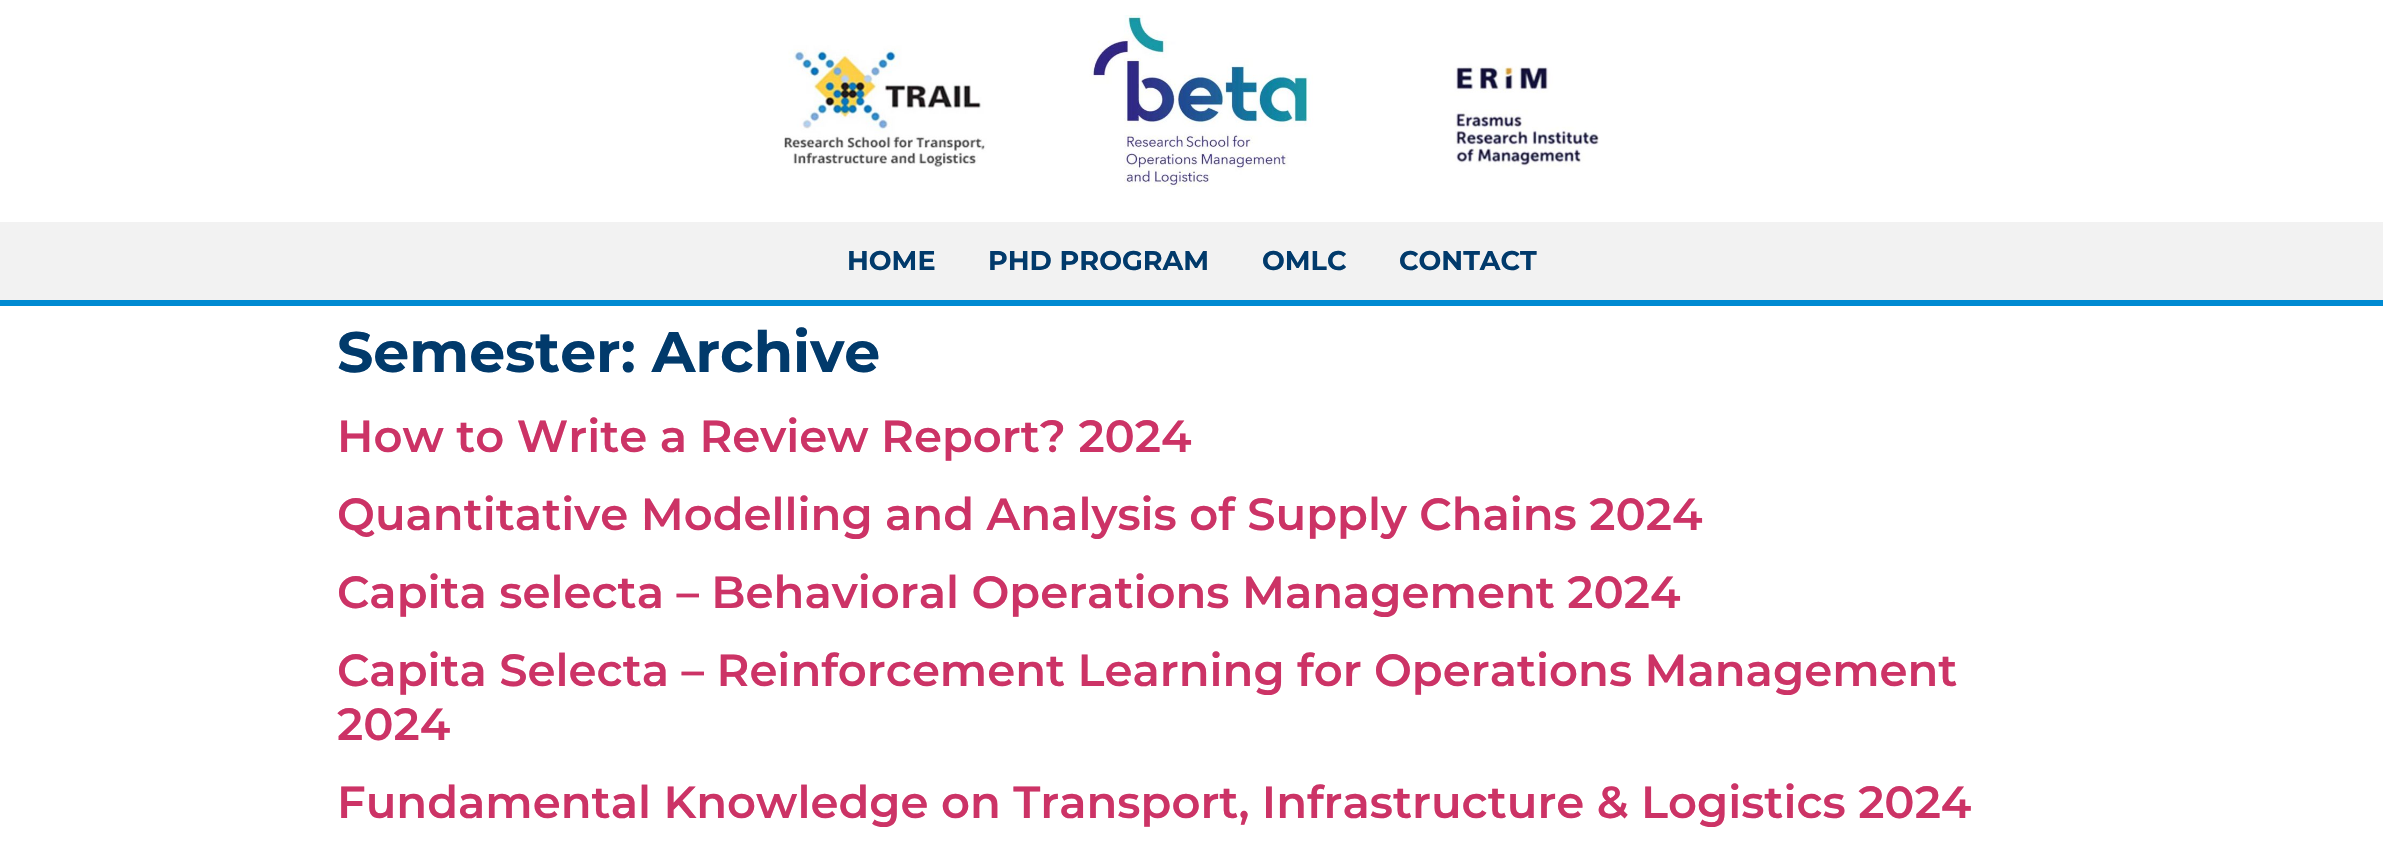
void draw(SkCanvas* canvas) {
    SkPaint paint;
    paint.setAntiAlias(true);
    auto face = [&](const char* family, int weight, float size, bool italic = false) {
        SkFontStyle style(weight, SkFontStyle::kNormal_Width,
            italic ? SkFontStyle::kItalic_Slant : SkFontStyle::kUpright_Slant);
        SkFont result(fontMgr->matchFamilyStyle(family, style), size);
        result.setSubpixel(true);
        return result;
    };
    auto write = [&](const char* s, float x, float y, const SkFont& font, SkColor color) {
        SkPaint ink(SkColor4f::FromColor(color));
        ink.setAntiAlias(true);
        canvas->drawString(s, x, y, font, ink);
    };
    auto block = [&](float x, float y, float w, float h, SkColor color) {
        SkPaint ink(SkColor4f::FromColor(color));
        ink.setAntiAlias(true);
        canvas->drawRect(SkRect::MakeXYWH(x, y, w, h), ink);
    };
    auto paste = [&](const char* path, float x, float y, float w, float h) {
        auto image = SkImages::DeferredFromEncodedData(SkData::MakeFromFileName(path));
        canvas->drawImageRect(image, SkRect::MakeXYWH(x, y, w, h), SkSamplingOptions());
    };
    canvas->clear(SK_ColorWHITE);
    paste("pic1.png", 784, 15, 815, 172);
    block(0, 222, 2383, 78, SkColorSetRGB(242, 242, 242));
    block(0, 300, 2383, 6, SkColorSetRGB(0, 138, 210));
    auto kFont1 = face("Montserrat", 700, 27);
    write("HOME", 847, 270, kFont1, SkColorSetRGB(1, 58, 107));
    write("PHD PROGRAM", 988, 270, kFont1, SkColorSetRGB(1, 58, 107));
    write("OMLC", 1262, 270, kFont1, SkColorSetRGB(1, 58, 107));
    write("CONTACT", 1399, 270, kFont1, SkColorSetRGB(1, 58, 107));
    auto kFont2 = face("Montserrat", 700, 57);
    write("Semester: Archive", 337, 372, kFont2, SkColorSetRGB(1, 58, 107));
    auto kFont3 = face("Montserrat", 600, 45);
    write("How to Write a Review Report? 2024", 337, 452, kFont3, SkColorSetRGB(204, 51, 102));
    write("Quantitative Modelling and Analysis of Supply Chains 2024", 337, 530, kFont3, SkColorSetRGB(204, 51, 102));
    write("Capita selecta – Behavioral Operations Management 2024", 337, 608, kFont3, SkColorSetRGB(204, 51, 102));
    write("Capita Selecta – Reinforcement Learning for Operations Management", 337, 686, kFont3, SkColorSetRGB(204, 51, 102));
    write("2024", 337, 740, kFont3, SkColorSetRGB(204, 51, 102));
    write("Fundamental Knowledge on Transport, Infrastructure & Logistics 2024", 337, 818, kFont3, SkColorSetRGB(204, 51, 102));
}
